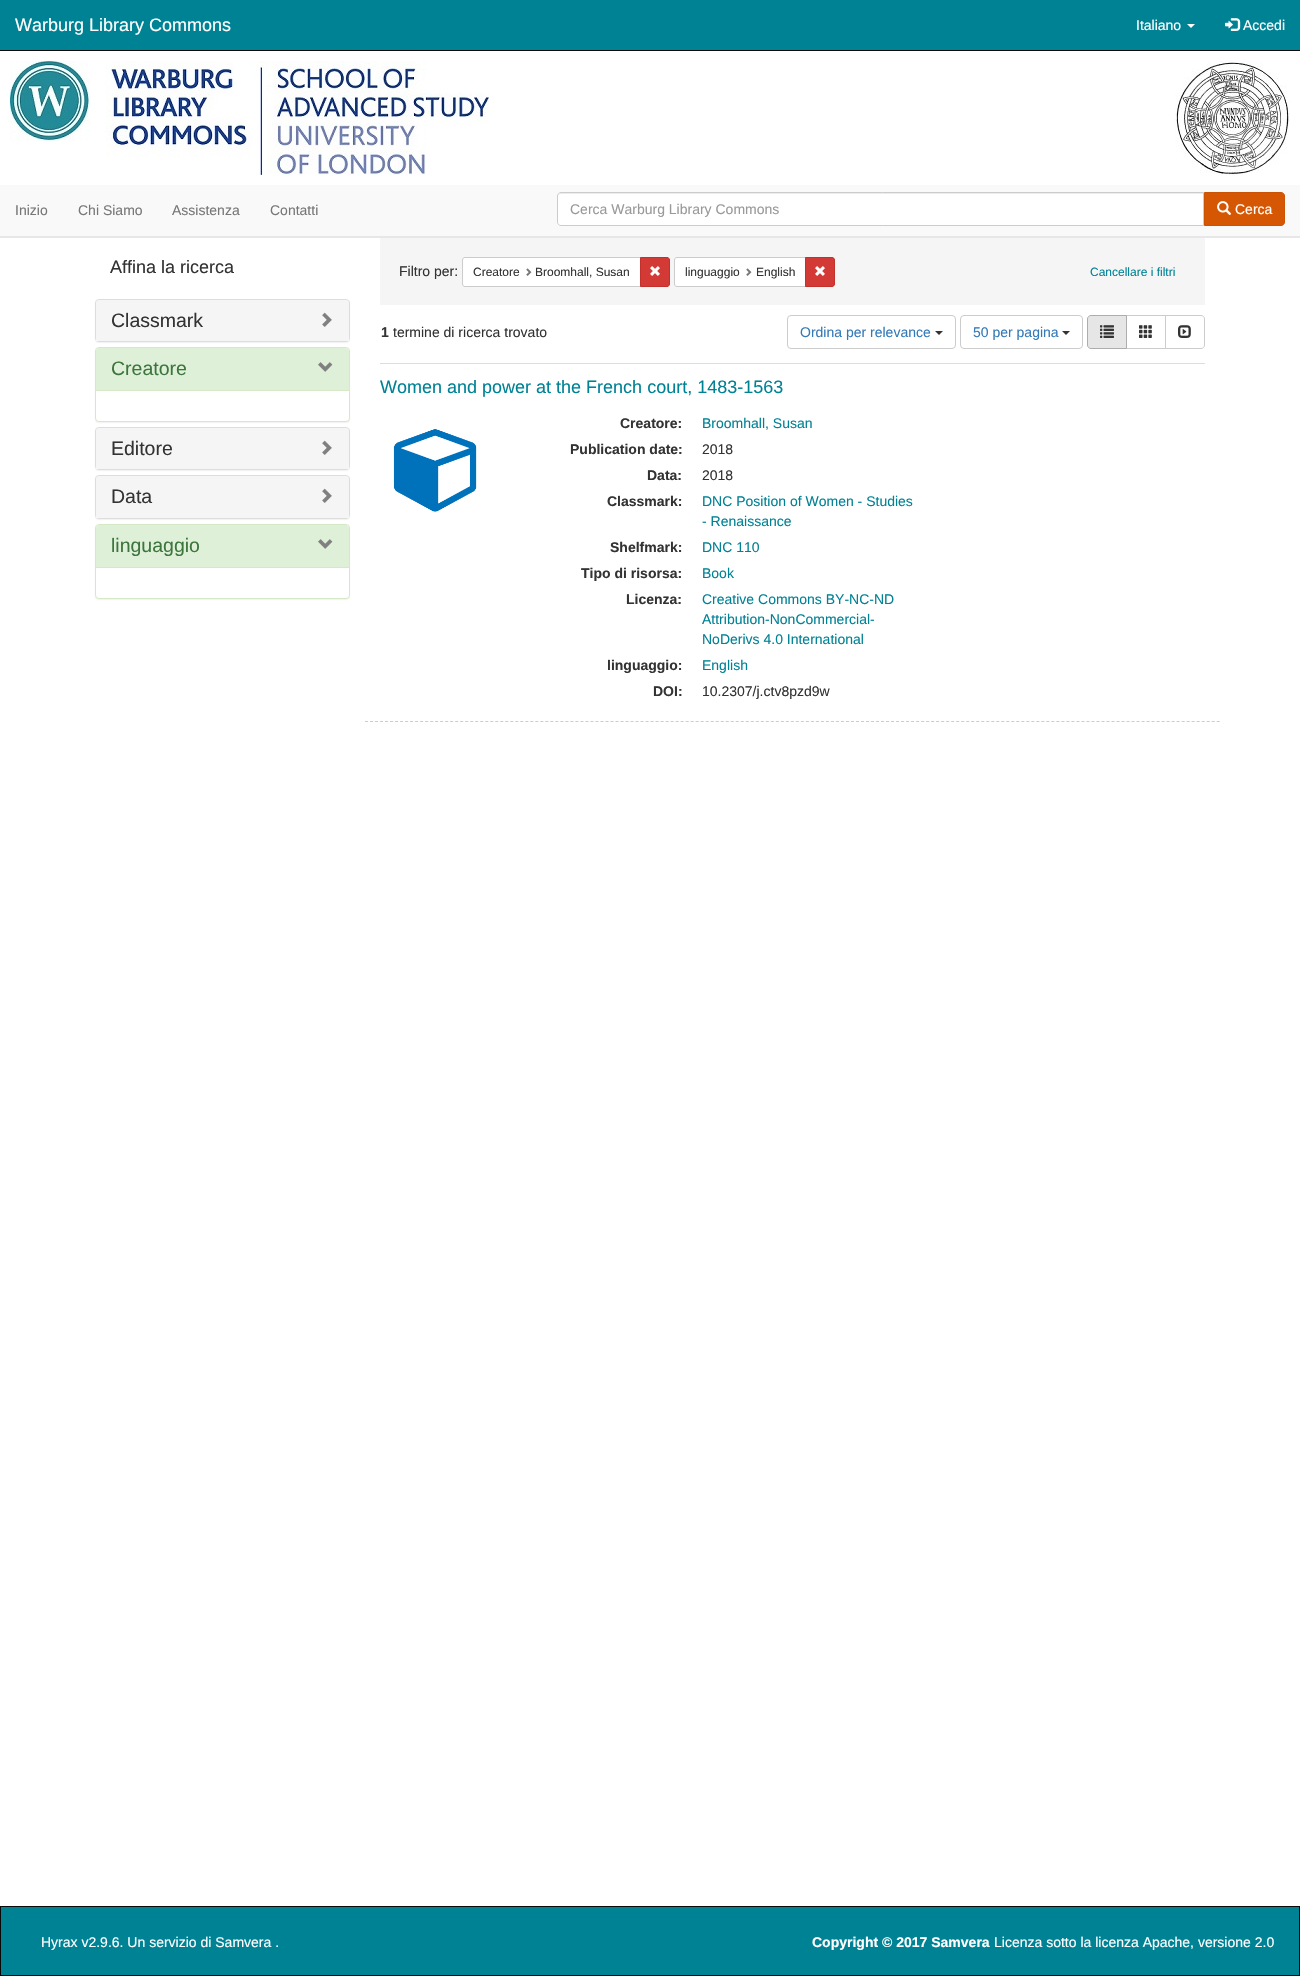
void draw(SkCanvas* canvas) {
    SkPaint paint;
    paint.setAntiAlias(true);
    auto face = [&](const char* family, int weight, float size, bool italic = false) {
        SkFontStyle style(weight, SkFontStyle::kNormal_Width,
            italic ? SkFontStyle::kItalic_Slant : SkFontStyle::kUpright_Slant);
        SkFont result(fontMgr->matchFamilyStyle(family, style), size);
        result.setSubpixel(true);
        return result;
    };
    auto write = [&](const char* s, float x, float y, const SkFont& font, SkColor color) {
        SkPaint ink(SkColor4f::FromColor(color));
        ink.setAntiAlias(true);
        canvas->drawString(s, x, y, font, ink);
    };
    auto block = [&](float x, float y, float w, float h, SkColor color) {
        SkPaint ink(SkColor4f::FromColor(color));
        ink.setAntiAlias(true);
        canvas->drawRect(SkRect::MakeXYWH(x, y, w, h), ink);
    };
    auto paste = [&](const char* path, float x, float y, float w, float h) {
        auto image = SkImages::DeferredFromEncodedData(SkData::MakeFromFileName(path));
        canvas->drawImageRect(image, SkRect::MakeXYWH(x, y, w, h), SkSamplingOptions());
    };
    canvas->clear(SK_ColorWHITE);
    block(0, 0, 1300, 50, SkColorSetRGB(0, 130, 149));
    block(0, 50, 1300, 1, SkColorSetRGB(9, 9, 9));
    auto kFont1 = face("Liberation Sans", 400, 18);
    write("Warburg Library Commons", 15, 31, kFont1, SK_ColorWHITE);
    auto kFont2 = face("Liberation Sans", 400, 14);
    write("Italiano", 1136, 30, kFont2, SK_ColorWHITE);
    paint.setColor(SK_ColorWHITE);
    canvas->drawPath(SkPathBuilder().moveTo(1187, 24).lineTo(1195, 24).lineTo(1191, 28).close().detach(), paint);
    paste("pic1.png", 1225, 18, 16, 13);
    write("Accedi", 1243, 30, kFont2, SK_ColorWHITE);
    block(0, 236, 1300, 2, SkColorSetRGB(231, 231, 231));
    paste("pic2.png", 10, 61, 479, 114);
    paste("pic3.png", 1175, 61, 115, 114);
    block(0, 185, 1300, 51, SkColorSetRGB(249, 249, 249));
    write("Inizio", 15, 215, kFont2, SkColorSetRGB(119, 119, 119));
    write("Chi Siamo", 78, 215, kFont2, SkColorSetRGB(119, 119, 119));
    write("Assistenza", 172, 215, kFont2, SkColorSetRGB(119, 119, 119));
    write("Contatti", 270, 215, kFont2, SkColorSetRGB(119, 119, 119));
    canvas->drawPath(SkPathBuilder().moveTo(561, 192).lineTo(1204, 192).lineTo(1204, 226).lineTo(561, 226).cubicTo(559, 226, 557, 224, 557, 222).lineTo(557, 196).cubicTo(557, 194, 559, 192, 561, 192).close().detach(), paint);
    paint.setColor(SkColorSetRGB(236, 236, 236));
    canvas->drawPath(SkPathBuilder().moveTo(561, 194).lineTo(1203, 194).lineTo(1203, 193).lineTo(561, 193).cubicTo(559, 193, 558, 194, 558, 196).lineTo(558, 197).cubicTo(558, 195, 559, 194, 561, 194).close().detach(), paint);
    paint.setStyle(SkPaint::kStroke_Style);
    paint.setStrokeWidth(1);
    paint.setColor(SkColorSetRGB(204, 204, 204));
    canvas->drawPath(SkPathBuilder().moveTo(561, 192.5f).lineTo(1203.5f, 192.5f).lineTo(1203.5f, 225.5f).lineTo(561, 225.5f).cubicTo(559, 225.5f, 557.5f, 224, 557.5f, 222).lineTo(557.5f, 196).cubicTo(557.5f, 194, 559, 192.5f, 561, 192.5f).close().detach(), paint);
    write("Cerca Warburg Library Commons", 570, 214, kFont2, SkColorSetRGB(153, 153, 153));
    paint.setStyle(SkPaint::kFill_Style);
    paint.setColor(SkColorSetRGB(214, 87, 3));
    canvas->drawPath(SkPathBuilder().moveTo(1204.5f, 192.5f).lineTo(1281, 192.5f).cubicTo(1283, 192.5f, 1284.5f, 194, 1284.5f, 196).lineTo(1284.5f, 222).cubicTo(1284.5f, 224, 1283, 225.5f, 1281, 225.5f).lineTo(1204.5f, 225.5f).close().detach(), paint);
    paint.setStyle(SkPaint::kStroke_Style);
    paint.setColor(SkColorSetRGB(203, 83, 3));
    canvas->drawPath(SkPathBuilder().moveTo(1204.5f, 192.5f).lineTo(1281, 192.5f).cubicTo(1283, 192.5f, 1284.5f, 194, 1284.5f, 196).lineTo(1284.5f, 222).cubicTo(1284.5f, 224, 1283, 225.5f, 1281, 225.5f).lineTo(1204.5f, 225.5f).close().detach(), paint);
    paste("pic4.png", 1217, 201, 15, 14);
    write("Cerca", 1235, 214, kFont2, SK_ColorWHITE);
    write("Affina la ricerca", 110, 273, kFont1, SkColorSetRGB(51, 51, 51));
    paint.setStyle(SkPaint::kFill_Style);
    paint.setColor(SkColorSetARGB(13, 0, 0, 0));
    paint.setMaskFilter(SkMaskFilter::MakeBlur(kNormal_SkBlurStyle, 0.5f));
    canvas->drawRoundRect(SkRect::MakeXYWH(95, 300, 255, 43), 4, 4, paint);
    paint.setMaskFilter(nullptr);
    paint.setStyle(SkPaint::kStroke_Style);
    paint.setColor(SkColorSetRGB(221, 221, 221));
    canvas->drawRoundRect(SkRect::MakeXYWH(95.5f, 299.5f, 254, 42), 3.5f, 3.5f, paint);
    paint.setStyle(SkPaint::kFill_Style);
    paint.setColor(SkColorSetRGB(245, 245, 245));
    canvas->drawPath(SkPathBuilder().moveTo(99, 300).lineTo(346, 300).cubicTo(347.5f, 300, 349, 301.5f, 349, 303).lineTo(349, 341).lineTo(96, 341).lineTo(96, 303).cubicTo(96, 301.5f, 97.5f, 300, 99, 300).close().detach(), paint);
    auto kFont3 = face("Liberation Sans", 400, 19.5f);
    write("Classmark", 111, 327, kFont3, SkColorSetRGB(51, 51, 51));
    paste("pic5.png", 322, 312, 10, 15);
    paint.setColor(SkColorSetARGB(13, 0, 0, 0));
    paint.setMaskFilter(SkMaskFilter::MakeBlur(kNormal_SkBlurStyle, 0.5f));
    canvas->drawRoundRect(SkRect::MakeXYWH(95, 348, 255, 75), 4, 4, paint);
    paint.setMaskFilter(nullptr);
    paint.setColor(SK_ColorWHITE);
    canvas->drawRoundRect(SkRect::MakeXYWH(95.5f, 347.5f, 254, 74), 3.5f, 3.5f, paint);
    paint.setStyle(SkPaint::kStroke_Style);
    paint.setColor(SkColorSetRGB(214, 233, 198));
    canvas->drawRoundRect(SkRect::MakeXYWH(95.5f, 347.5f, 254, 74), 3.5f, 3.5f, paint);
    paint.setStyle(SkPaint::kFill_Style);
    paint.setColor(SkColorSetRGB(223, 240, 216));
    canvas->drawPath(SkPathBuilder().moveTo(99, 348).lineTo(346, 348).cubicTo(347.5f, 348, 349, 349.5f, 349, 351).lineTo(349, 390).lineTo(96, 390).lineTo(96, 351).cubicTo(96, 349.5f, 97.5f, 348, 99, 348).close().detach(), paint);
    write("Creatore", 111, 375, kFont3, SkColorSetRGB(60, 118, 61));
    paste("pic6.png", 318, 362, 15, 10);
    block(96, 390, 253, 1, SkColorSetRGB(214, 233, 198));
    paint.setColor(SkColorSetARGB(13, 0, 0, 0));
    paint.setMaskFilter(SkMaskFilter::MakeBlur(kNormal_SkBlurStyle, 0.5f));
    canvas->drawRoundRect(SkRect::MakeXYWH(95, 428, 255, 43), 4, 4, paint);
    paint.setMaskFilter(nullptr);
    paint.setStyle(SkPaint::kStroke_Style);
    paint.setColor(SkColorSetRGB(221, 221, 221));
    canvas->drawRoundRect(SkRect::MakeXYWH(95.5f, 427.5f, 254, 42), 3.5f, 3.5f, paint);
    paint.setStyle(SkPaint::kFill_Style);
    paint.setColor(SkColorSetRGB(245, 245, 245));
    canvas->drawPath(SkPathBuilder().moveTo(99, 428).lineTo(346, 428).cubicTo(347.5f, 428, 349, 429.5f, 349, 431).lineTo(349, 469).lineTo(96, 469).lineTo(96, 431).cubicTo(96, 429.5f, 97.5f, 428, 99, 428).close().detach(), paint);
    write("Editore", 111, 455, kFont3, SkColorSetRGB(51, 51, 51));
    paste("pic5.png", 322, 440, 10, 15);
    paint.setColor(SkColorSetARGB(13, 0, 0, 0));
    paint.setMaskFilter(SkMaskFilter::MakeBlur(kNormal_SkBlurStyle, 0.5f));
    canvas->drawRoundRect(SkRect::MakeXYWH(95, 476, 255, 44), 4, 4, paint);
    paint.setMaskFilter(nullptr);
    paint.setStyle(SkPaint::kStroke_Style);
    paint.setColor(SkColorSetRGB(221, 221, 221));
    canvas->drawRoundRect(SkRect::MakeXYWH(95.5f, 475.5f, 254, 43), 3.5f, 3.5f, paint);
    paint.setStyle(SkPaint::kFill_Style);
    paint.setColor(SkColorSetRGB(245, 245, 245));
    canvas->drawPath(SkPathBuilder().moveTo(99, 476).lineTo(346, 476).cubicTo(347.5f, 476, 349, 477.5f, 349, 479).lineTo(349, 518).lineTo(96, 518).lineTo(96, 479).cubicTo(96, 477.5f, 97.5f, 476, 99, 476).close().detach(), paint);
    write("Data", 111, 503, kFont3, SkColorSetRGB(51, 51, 51));
    paste("pic5.png", 322, 488, 10, 15);
    paint.setColor(SkColorSetARGB(13, 0, 0, 0));
    paint.setMaskFilter(SkMaskFilter::MakeBlur(kNormal_SkBlurStyle, 0.5f));
    canvas->drawRoundRect(SkRect::MakeXYWH(95, 525, 255, 75), 4, 4, paint);
    paint.setMaskFilter(nullptr);
    paint.setColor(SK_ColorWHITE);
    canvas->drawRoundRect(SkRect::MakeXYWH(95.5f, 524.5f, 254, 74), 3.5f, 3.5f, paint);
    paint.setStyle(SkPaint::kStroke_Style);
    paint.setColor(SkColorSetRGB(214, 233, 198));
    canvas->drawRoundRect(SkRect::MakeXYWH(95.5f, 524.5f, 254, 74), 3.5f, 3.5f, paint);
    paint.setStyle(SkPaint::kFill_Style);
    paint.setColor(SkColorSetRGB(223, 240, 216));
    canvas->drawPath(SkPathBuilder().moveTo(99, 525).lineTo(346, 525).cubicTo(347.5f, 525, 349, 526.5f, 349, 528).lineTo(349, 567).lineTo(96, 567).lineTo(96, 528).cubicTo(96, 526.5f, 97.5f, 525, 99, 525).close().detach(), paint);
    write("linguaggio", 111, 552, kFont3, SkColorSetRGB(60, 118, 61));
    paste("pic6.png", 318, 539, 15, 10);
    block(96, 567, 253, 1, SkColorSetRGB(214, 233, 198));
    block(380, 238, 825, 67, SkColorSetRGB(245, 245, 245));
    write("Filtro per:", 399, 276, kFont2, SkColorSetRGB(51, 51, 51));
    paint.setColor(SK_ColorWHITE);
    canvas->drawPath(SkPathBuilder().moveTo(465, 257.5f).lineTo(640.5f, 257.5f).lineTo(640.5f, 286.5f).lineTo(465, 286.5f).cubicTo(463.5f, 286.5f, 462.5f, 285.5f, 462.5f, 284).lineTo(462.5f, 260).cubicTo(462.5f, 258.5f, 463.5f, 257.5f, 465, 257.5f).close().detach(), paint);
    paint.setStyle(SkPaint::kStroke_Style);
    paint.setColor(SkColorSetRGB(204, 204, 204));
    canvas->drawPath(SkPathBuilder().moveTo(465, 257.5f).lineTo(640.5f, 257.5f).lineTo(640.5f, 286.5f).lineTo(465, 286.5f).cubicTo(463.5f, 286.5f, 462.5f, 285.5f, 462.5f, 284).lineTo(462.5f, 260).cubicTo(462.5f, 258.5f, 463.5f, 257.5f, 465, 257.5f).close().detach(), paint);
    auto kFont4 = face("Liberation Sans", 400, 12);
    write("Creatore", 473, 276, kFont4, SkColorSetRGB(51, 51, 51));
    paste("pic7.png", 526, 268, 6, 8);
    write("Broomhall, Susan", 535, 276, kFont4, SkColorSetRGB(51, 51, 51));
    paint.setStyle(SkPaint::kFill_Style);
    paint.setColor(SkColorSetRGB(211, 58, 53));
    canvas->drawPath(SkPathBuilder().moveTo(640.5f, 257.5f).lineTo(667, 257.5f).cubicTo(668.5f, 257.5f, 669.5f, 258.5f, 669.5f, 260).lineTo(669.5f, 284).cubicTo(669.5f, 285.5f, 668.5f, 286.5f, 667, 286.5f).lineTo(640.5f, 286.5f).close().detach(), paint);
    paint.setStyle(SkPaint::kStroke_Style);
    paint.setColor(SkColorSetRGB(196, 48, 43));
    canvas->drawPath(SkPathBuilder().moveTo(640.5f, 257.5f).lineTo(667, 257.5f).cubicTo(668.5f, 257.5f, 669.5f, 258.5f, 669.5f, 260).lineTo(669.5f, 284).cubicTo(669.5f, 285.5f, 668.5f, 286.5f, 667, 286.5f).lineTo(640.5f, 286.5f).close().detach(), paint);
    paste("pic8.png", 650, 266, 10, 10);
    paint.setStyle(SkPaint::kFill_Style);
    paint.setColor(SK_ColorWHITE);
    canvas->drawPath(SkPathBuilder().moveTo(677, 257.5f).lineTo(805.5f, 257.5f).lineTo(805.5f, 286.5f).lineTo(677, 286.5f).cubicTo(675.5f, 286.5f, 674.5f, 285.5f, 674.5f, 284).lineTo(674.5f, 260).cubicTo(674.5f, 258.5f, 675.5f, 257.5f, 677, 257.5f).close().detach(), paint);
    paint.setStyle(SkPaint::kStroke_Style);
    paint.setColor(SkColorSetRGB(204, 204, 204));
    canvas->drawPath(SkPathBuilder().moveTo(677, 257.5f).lineTo(805.5f, 257.5f).lineTo(805.5f, 286.5f).lineTo(677, 286.5f).cubicTo(675.5f, 286.5f, 674.5f, 285.5f, 674.5f, 284).lineTo(674.5f, 260).cubicTo(674.5f, 258.5f, 675.5f, 257.5f, 677, 257.5f).close().detach(), paint);
    write("linguaggio", 685, 276, kFont4, SkColorSetRGB(51, 51, 51));
    paste("pic7.png", 746, 268, 6, 8);
    write("English", 756, 276, kFont4, SkColorSetRGB(51, 51, 51));
    paint.setStyle(SkPaint::kFill_Style);
    paint.setColor(SkColorSetRGB(211, 58, 53));
    canvas->drawPath(SkPathBuilder().moveTo(805.5f, 257.5f).lineTo(832, 257.5f).cubicTo(833.5f, 257.5f, 834.5f, 258.5f, 834.5f, 260).lineTo(834.5f, 284).cubicTo(834.5f, 285.5f, 833.5f, 286.5f, 832, 286.5f).lineTo(805.5f, 286.5f).close().detach(), paint);
    paint.setStyle(SkPaint::kStroke_Style);
    paint.setColor(SkColorSetRGB(196, 48, 43));
    canvas->drawPath(SkPathBuilder().moveTo(805.5f, 257.5f).lineTo(832, 257.5f).cubicTo(833.5f, 257.5f, 834.5f, 258.5f, 834.5f, 260).lineTo(834.5f, 284).cubicTo(834.5f, 285.5f, 833.5f, 286.5f, 832, 286.5f).lineTo(805.5f, 286.5f).close().detach(), paint);
    paste("pic8.png", 815, 266, 10, 10);
    write("Cancellare i filtri", 1090, 276, kFont4, SkColorSetRGB(0, 130, 149));
    block(380, 363, 825, 1, SkColorSetRGB(221, 221, 221));
    auto kFont5 = face("Liberation Sans", 700, 14);
    write("1", 381, 337, kFont5, SkColorSetRGB(51, 51, 51));
    write("termine di ricerca trovato", 393, 337, kFont2, SkColorSetRGB(51, 51, 51));
    paint.setColor(SkColorSetRGB(204, 204, 204));
    canvas->drawRoundRect(SkRect::MakeXYWH(787.5f, 315.5f, 168, 33), 3.5f, 3.5f, paint);
    write("Ordina per relevance", 800, 337, kFont2, SkColorSetRGB(51, 122, 183));
    paint.setStyle(SkPaint::kFill_Style);
    paint.setColor(SkColorSetRGB(51, 51, 51));
    canvas->drawPath(SkPathBuilder().moveTo(935, 331).lineTo(943, 331).lineTo(939, 335).close().detach(), paint);
    paint.setStyle(SkPaint::kStroke_Style);
    paint.setColor(SkColorSetRGB(204, 204, 204));
    canvas->drawRoundRect(SkRect::MakeXYWH(960.5f, 315.5f, 122, 33), 3.5f, 3.5f, paint);
    write("50 per pagina", 973, 337, kFont2, SkColorSetRGB(51, 122, 183));
    paint.setStyle(SkPaint::kFill_Style);
    paint.setColor(SkColorSetRGB(51, 51, 51));
    canvas->drawPath(SkPathBuilder().moveTo(1062, 331).lineTo(1070, 331).lineTo(1066, 335).close().detach(), paint);
    paint.setStyle(SkPaint::kStroke_Style);
    paint.setColor(SkColorSetRGB(204, 204, 204));
    canvas->drawRect(SkRect::MakeXYWH(1126.5f, 315.5f, 39, 33), paint);
    paint.setStyle(SkPaint::kFill_Style);
    paint.setColor(SkColorSetRGB(230, 230, 230));
    canvas->drawPath(SkPathBuilder().moveTo(1091, 315.5f).lineTo(1126.5f, 315.5f).lineTo(1126.5f, 348.5f).lineTo(1091, 348.5f).cubicTo(1089, 348.5f, 1087.5f, 347, 1087.5f, 345).lineTo(1087.5f, 319).cubicTo(1087.5f, 317, 1089, 315.5f, 1091, 315.5f).close().detach(), paint);
    paint.setStyle(SkPaint::kStroke_Style);
    paint.setColor(SkColorSetRGB(173, 173, 173));
    canvas->drawPath(SkPathBuilder().moveTo(1091, 315.5f).lineTo(1126.5f, 315.5f).lineTo(1126.5f, 348.5f).lineTo(1091, 348.5f).cubicTo(1089, 348.5f, 1087.5f, 347, 1087.5f, 345).lineTo(1087.5f, 319).cubicTo(1087.5f, 317, 1089, 315.5f, 1091, 315.5f).close().detach(), paint);
    paste("pic9.png", 1100, 325, 14, 13);
    paste("pic10.png", 1139, 325, 13, 13);
    paint.setStyle(SkPaint::kFill_Style);
    paint.setColor(SK_ColorWHITE);
    canvas->drawPath(SkPathBuilder().moveTo(1165.5f, 315.5f).lineTo(1201, 315.5f).cubicTo(1203, 315.5f, 1204.5f, 317, 1204.5f, 319).lineTo(1204.5f, 345).cubicTo(1204.5f, 347, 1203, 348.5f, 1201, 348.5f).lineTo(1165.5f, 348.5f).close().detach(), paint);
    paint.setStyle(SkPaint::kStroke_Style);
    paint.setColor(SkColorSetRGB(204, 204, 204));
    canvas->drawPath(SkPathBuilder().moveTo(1165.5f, 315.5f).lineTo(1201, 315.5f).cubicTo(1203, 315.5f, 1204.5f, 317, 1204.5f, 319).lineTo(1204.5f, 345).cubicTo(1204.5f, 347, 1203, 348.5f, 1201, 348.5f).lineTo(1165.5f, 348.5f).close().detach(), paint);
    paste("pic11.png", 1178, 325, 13, 13);
    paint.setPathEffect(SkDashPathEffect::Make({{3, 2.01f}}, 0));
    canvas->drawPath(SkPathBuilder().moveTo(365, 721.5f).lineTo(1220, 721.5f).detach(), paint);
    paint.setPathEffect(nullptr);
    write("Women and power at the French court, 1483-1563", 380, 393, kFont1, SkColorSetRGB(0, 130, 149));
    paste("pic12.png", 393, 429, 84, 83);
    write("Creatore:", 620, 428, kFont5, SkColorSetRGB(51, 51, 51));
    write("Broomhall, Susan", 702, 428, kFont2, SkColorSetRGB(0, 130, 149));
    write("Publication date:", 570, 454, kFont5, SkColorSetRGB(51, 51, 51));
    write("2018", 702, 454, kFont2, SkColorSetRGB(51, 51, 51));
    write("Data:", 647, 480, kFont5, SkColorSetRGB(51, 51, 51));
    write("2018", 702, 480, kFont2, SkColorSetRGB(51, 51, 51));
    write("Classmark:", 607, 506, kFont5, SkColorSetRGB(51, 51, 51));
    write("DNC Position of Women - Studies", 702, 506, kFont2, SkColorSetRGB(0, 130, 149));
    write("- Renaissance", 702, 526, kFont2, SkColorSetRGB(0, 130, 149));
    write("Shelfmark:", 610, 552, kFont5, SkColorSetRGB(51, 51, 51));
    write("DNC 110", 702, 552, kFont2, SkColorSetRGB(0, 130, 149));
    write("Tipo di risorsa:", 581, 578, kFont5, SkColorSetRGB(51, 51, 51));
    write("Book", 702, 578, kFont2, SkColorSetRGB(0, 130, 149));
    write("Licenza:", 626, 604, kFont5, SkColorSetRGB(51, 51, 51));
    write("Creative Commons BY-NC-ND", 702, 604, kFont2, SkColorSetRGB(0, 130, 149));
    write("Attribution-NonCommercial-", 702, 624, kFont2, SkColorSetRGB(0, 130, 149));
    write("NoDerivs 4.0 International", 702, 644, kFont2, SkColorSetRGB(0, 130, 149));
    write("linguaggio:", 607, 670, kFont5, SkColorSetRGB(51, 51, 51));
    write("English", 702, 670, kFont2, SkColorSetRGB(0, 130, 149));
    write("DOI:", 653, 696, kFont5, SkColorSetRGB(51, 51, 51));
    write("10.2307/j.ctv8pzd9w", 702, 696, kFont2, SkColorSetRGB(51, 51, 51));
    paint.setStyle(SkPaint::kFill_Style);
    paint.setColor(SkColorSetRGB(0, 130, 149));
    canvas->drawRect(SkRect::MakeXYWH(0.5f, 1906.5f, 1299, 69), paint);
    paint.setStyle(SkPaint::kStroke_Style);
    paint.setColor(SkColorSetRGB(9, 9, 9));
    canvas->drawRect(SkRect::MakeXYWH(0.5f, 1906.5f, 1299, 69), paint);
    write("Hyrax v2.9.6. Un servizio di Samvera .", 41, 1947, kFont2, SK_ColorWHITE);
    write("Copyright © 2017 Samvera", 812, 1947, kFont5, SK_ColorWHITE);
    write("Licenza sotto la licenza Apache, versione 2.0", 994, 1947, kFont2, SK_ColorWHITE);
}
